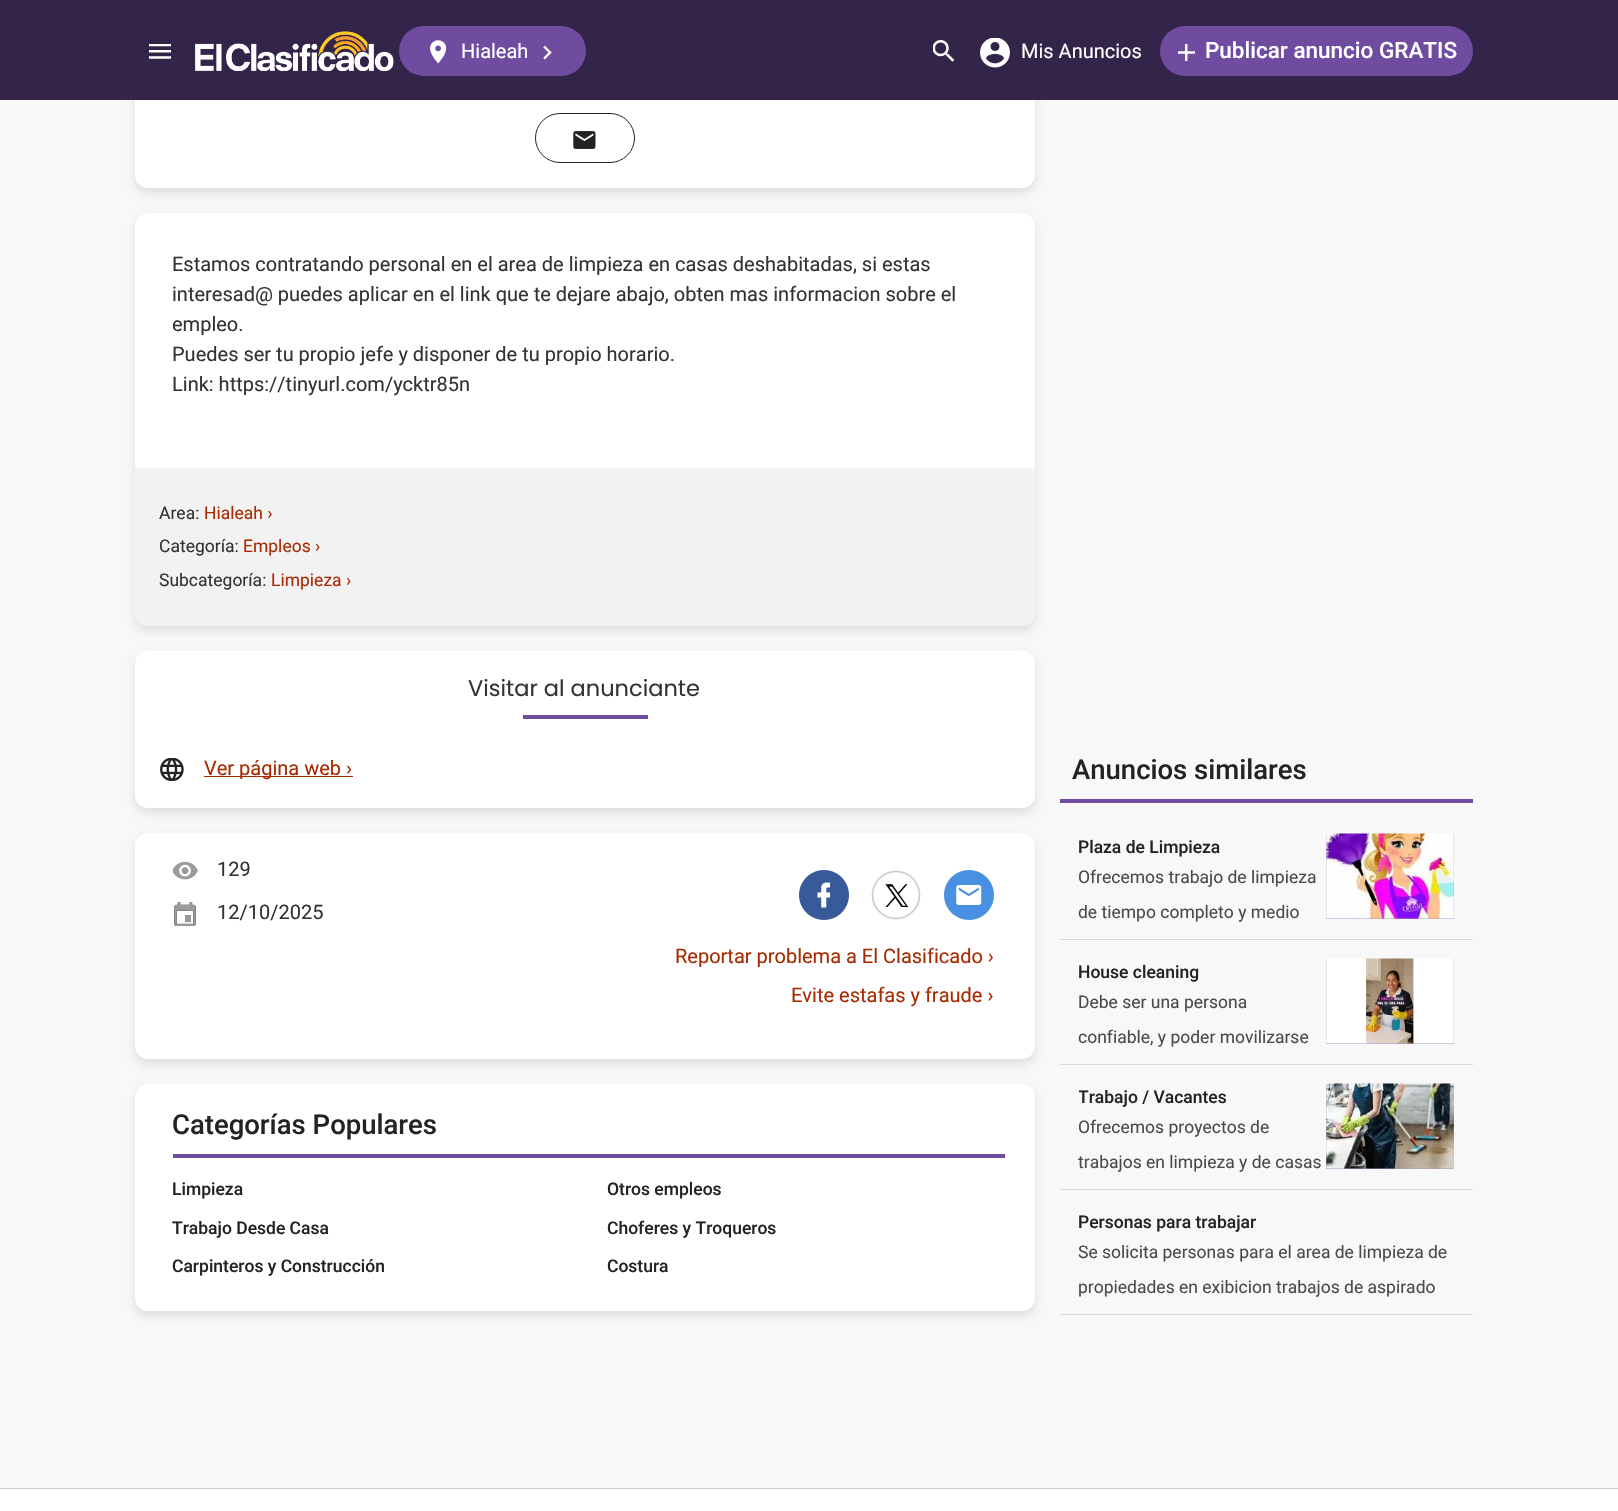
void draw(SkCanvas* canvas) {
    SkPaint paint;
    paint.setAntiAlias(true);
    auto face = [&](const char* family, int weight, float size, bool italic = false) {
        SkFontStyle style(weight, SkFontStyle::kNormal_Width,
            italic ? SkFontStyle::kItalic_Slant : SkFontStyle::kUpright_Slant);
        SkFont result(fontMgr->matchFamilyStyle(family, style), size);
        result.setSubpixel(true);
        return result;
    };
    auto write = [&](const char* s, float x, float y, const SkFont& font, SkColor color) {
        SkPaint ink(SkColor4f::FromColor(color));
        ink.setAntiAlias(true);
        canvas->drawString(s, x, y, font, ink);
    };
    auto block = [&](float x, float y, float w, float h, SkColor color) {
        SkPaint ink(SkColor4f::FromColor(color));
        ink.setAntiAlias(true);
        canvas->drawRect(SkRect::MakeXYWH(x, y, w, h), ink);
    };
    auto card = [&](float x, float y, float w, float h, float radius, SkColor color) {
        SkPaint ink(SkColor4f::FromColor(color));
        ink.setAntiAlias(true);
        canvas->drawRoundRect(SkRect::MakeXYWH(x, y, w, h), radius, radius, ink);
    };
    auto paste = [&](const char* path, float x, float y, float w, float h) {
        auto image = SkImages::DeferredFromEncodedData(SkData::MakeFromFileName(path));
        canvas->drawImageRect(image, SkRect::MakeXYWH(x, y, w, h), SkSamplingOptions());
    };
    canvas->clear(SkColorSetRGB(248, 248, 248));
    paint.setColor(SkColorSetARGB(26, 0, 0, 0));
    paint.setMaskFilter(SkMaskFilter::MakeBlur(kNormal_SkBlurStyle, 5));
    canvas->drawRoundRect(SkRect::MakeXYWH(135, 13, 900, 180), 13, 13, paint);
    paint.setMaskFilter(nullptr);
    card(135, 8, 900, 180, 13, SK_ColorWHITE);
    block(0, 0, 1618, 100, SkColorSetRGB(50, 37, 73));
    paste("pic1.png", 149, 44, 22, 15);
    paste("pic2.png", 195, 31, 199, 40);
    card(399, 26, 187, 50, 25, SkColorSetRGB(112, 76, 161));
    paste("pic3.png", 430, 40, 16, 24);
    auto kFont1 = face("Roboto", 400, 20);
    write("Hialeah", 461, 58, kFont1, SK_ColorWHITE);
    paste("pic4.png", 543, 45, 9, 15);
    paste("pic5.png", 933, 40, 22, 22);
    paste("pic6.png", 980, 38, 30, 30);
    write("Mis Anuncios", 1021, 58, kFont1, SK_ColorWHITE);
    card(1160, 26, 313, 50, 25, SkColorSetRGB(112, 76, 161));
    paste("pic7.png", 1178, 44, 17, 17);
    auto kFont2 = face("Roboto", 500, 22.5f);
    write("Publicar anuncio GRATIS", 1205, 58, kFont2, SK_ColorWHITE);
    paint.setStyle(SkPaint::kStroke_Style);
    paint.setStrokeWidth(1);
    paint.setColor(SkColorSetRGB(35, 35, 35));
    canvas->drawRoundRect(SkRect::MakeXYWH(535.5f, 113.5f, 99, 49), 24.5f, 24.5f, paint);
    paste("pic8.png", 573, 131, 23, 18);
    paint.setStyle(SkPaint::kFill_Style);
    paint.setColor(SkColorSetARGB(26, 0, 0, 0));
    paint.setMaskFilter(SkMaskFilter::MakeBlur(kNormal_SkBlurStyle, 5));
    canvas->drawRoundRect(SkRect::MakeXYWH(135, 218, 900, 413), 13, 13, paint);
    paint.setMaskFilter(nullptr);
    card(135, 213, 900, 413, 13, SK_ColorWHITE);
    write("Estamos contratando personal en el area de limpieza en casas deshabitadas, si estas", 172, 271, kFont1, SkColorSetRGB(51, 51, 51));
    write("interesad@ puedes aplicar en el link que te dejare abajo, obten mas informacion sobre el", 172, 301, kFont1, SkColorSetRGB(51, 51, 51));
    write("empleo.", 172, 331, kFont1, SkColorSetRGB(51, 51, 51));
    write("Puedes ser tu propio jefe y disponer de tu propio horario.", 172, 361, kFont1, SkColorSetRGB(51, 51, 51));
    write("Link: https://tinyurl.com/ycktr85n", 172, 391, kFont1, SkColorSetRGB(51, 51, 51));
    paint.setColor(SkColorSetRGB(242, 242, 242));
    canvas->drawPath(SkPathBuilder().moveTo(135, 468).lineTo(1035, 468).lineTo(1035, 613).cubicTo(1035, 620, 1029, 626, 1022, 626).lineTo(148, 626).cubicTo(141, 626, 135, 620, 135, 613).close().detach(), paint);
    auto kFont3 = face("Roboto", 400, 17.5f);
    write("Area:", 159, 519, kFont3, SkColorSetRGB(51, 51, 51));
    write("Hialeah ›", 204, 519, kFont3, SkColorSetRGB(168, 42, 0));
    write("Categoría:", 159, 552, kFont3, SkColorSetRGB(51, 51, 51));
    write("Empleos ›", 243, 552, kFont3, SkColorSetRGB(168, 42, 0));
    write("Subcategoría:", 159, 586, kFont3, SkColorSetRGB(51, 51, 51));
    write("Limpieza ›", 271, 586, kFont3, SkColorSetRGB(168, 42, 0));
    paint.setColor(SkColorSetARGB(26, 0, 0, 0));
    paint.setMaskFilter(SkMaskFilter::MakeBlur(kNormal_SkBlurStyle, 5));
    canvas->drawRoundRect(SkRect::MakeXYWH(135, 656, 900, 157), 13, 13, paint);
    paint.setMaskFilter(nullptr);
    card(135, 651, 900, 157, 13, SK_ColorWHITE);
    auto kFont4 = face("Poppins", 400, 22.5f);
    write("Visitar al anunciante", 468, 696, kFont4, SkColorSetRGB(51, 51, 51));
    block(523, 715, 125, 4, SkColorSetRGB(112, 76, 161));
    paste("pic9.png", 160, 758, 24, 23);
    block(204, 776, 149, 1, SkColorSetRGB(168, 42, 0));
    write("Ver página web ›", 204, 775, kFont1, SkColorSetRGB(168, 42, 0));
    paint.setMaskFilter(SkMaskFilter::MakeBlur(kNormal_SkBlurStyle, 5));
    canvas->drawRoundRect(SkRect::MakeXYWH(135, 838, 900, 226), 13, 13, paint);
    paint.setMaskFilter(nullptr);
    card(135, 833, 900, 226, 13, SK_ColorWHITE);
    paste("pic10.png", 173, 861, 25, 19);
    write("129", 217, 876, kFont1, SkColorSetRGB(51, 51, 51));
    paste("pic11.png", 174, 902, 22, 24);
    write("12/10/2025", 217, 919, kFont1, SkColorSetRGB(51, 51, 51));
    paste("pic12.png", 799, 870, 50, 50);
    paste("pic13.png", 871, 870, 50, 50);
    paste("pic14.png", 944, 870, 50, 50);
    write("Reportar problema a El Clasificado ›", 675, 963, kFont1, SkColorSetRGB(168, 42, 0));
    write("Evite estafas y fraude ›", 791, 1002, kFont1, SkColorSetRGB(168, 42, 0));
    paint.setMaskFilter(SkMaskFilter::MakeBlur(kNormal_SkBlurStyle, 5));
    canvas->drawRoundRect(SkRect::MakeXYWH(135, 1089, 900, 227), 13, 13, paint);
    paint.setMaskFilter(nullptr);
    card(135, 1084, 900, 227, 13, SK_ColorWHITE);
    auto kFont5 = face("Roboto", 500, 27.5f);
    write("Categorías Populares", 172, 1134, kFont5, SkColorSetRGB(35, 35, 35));
    block(173, 1154, 832, 4, SkColorSetRGB(112, 76, 161));
    auto kFont6 = face("Roboto", 500, 17.5f);
    write("Limpieza", 172, 1195, kFont6, SkColorSetRGB(35, 35, 35));
    write("Otros empleos", 607, 1195, kFont6, SkColorSetRGB(35, 35, 35));
    write("Trabajo Desde Casa", 172, 1234, kFont6, SkColorSetRGB(35, 35, 35));
    write("Choferes y Troqueros", 607, 1234, kFont6, SkColorSetRGB(35, 35, 35));
    write("Carpinteros y Construcción", 172, 1272, kFont6, SkColorSetRGB(35, 35, 35));
    write("Costura", 607, 1272, kFont6, SkColorSetRGB(35, 35, 35));
    write("Anuncios similares", 1072, 779, kFont5, SkColorSetRGB(35, 35, 35));
    block(1060, 799, 413, 4, SkColorSetRGB(112, 76, 161));
    block(1060, 939, 413, 1, SkColorSetRGB(216, 216, 216));
    write("Plaza de Limpieza", 1078, 853, kFont6, SkColorSetRGB(35, 35, 35));
    block(1326, 834, 128, 85, SkColorSetRGB(173, 149, 196));
    paste("pic15.png", 1326, 833, 128, 86);
    write("Ofrecemos trabajo de limpieza", 1078, 883, kFont3, SkColorSetRGB(74, 74, 74));
    write("de tiempo completo y medio", 1078, 918, kFont3, SkColorSetRGB(74, 74, 74));
    block(1060, 1064, 413, 1, SkColorSetRGB(216, 216, 216));
    write("House cleaning", 1078, 978, kFont6, SkColorSetRGB(35, 35, 35));
    block(1326, 959, 128, 85, SkColorSetRGB(173, 149, 196));
    paste("pic16.png", 1326, 958, 128, 86);
    write("Debe ser una persona", 1078, 1008, kFont3, SkColorSetRGB(74, 74, 74));
    write("confiable, y poder movilizarse", 1078, 1043, kFont3, SkColorSetRGB(74, 74, 74));
    block(1060, 1189, 413, 1, SkColorSetRGB(216, 216, 216));
    canvas->save();
    canvas->clipRect(SkRect::MakeXYWH(1079, 1084, 247, 25));
    write("Trabajo / Vacantes", 1078, 1103, kFont6, SkColorSetRGB(35, 35, 35));
    canvas->restore();
    block(1326, 1084, 128, 85, SkColorSetRGB(173, 149, 196));
    paste("pic17.png", 1326, 1083, 128, 86);
    write("Ofrecemos proyectos de", 1078, 1133, kFont3, SkColorSetRGB(74, 74, 74));
    write("trabajos en limpieza y de casas", 1078, 1168, kFont3, SkColorSetRGB(74, 74, 74));
    block(1060, 1314, 413, 1, SkColorSetRGB(216, 216, 216));
    write("Personas para trabajar", 1078, 1228, kFont6, SkColorSetRGB(35, 35, 35));
    write("Se solicita personas para el area de limpieza de", 1078, 1258, kFont3, SkColorSetRGB(74, 74, 74));
    write("propiedades en exibicion trabajos de aspirado", 1078, 1293, kFont3, SkColorSetRGB(74, 74, 74));
    block(0, 1489, 1618, 22, SK_ColorWHITE);
    block(0, 1488, 1618, 1, SkColorSetRGB(204, 204, 204));
}
